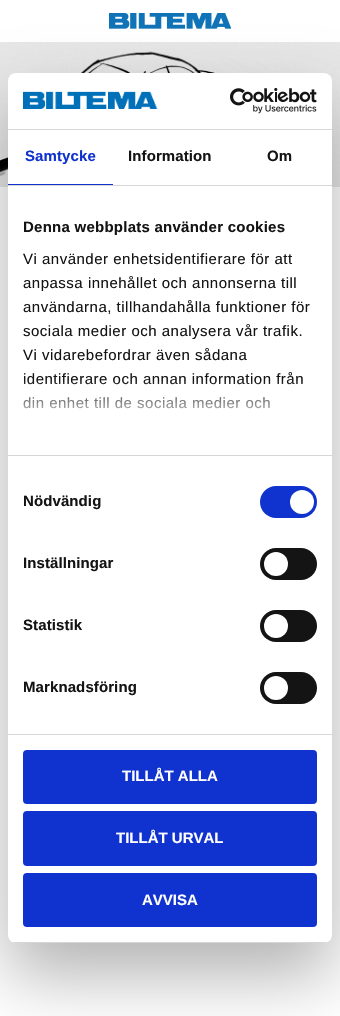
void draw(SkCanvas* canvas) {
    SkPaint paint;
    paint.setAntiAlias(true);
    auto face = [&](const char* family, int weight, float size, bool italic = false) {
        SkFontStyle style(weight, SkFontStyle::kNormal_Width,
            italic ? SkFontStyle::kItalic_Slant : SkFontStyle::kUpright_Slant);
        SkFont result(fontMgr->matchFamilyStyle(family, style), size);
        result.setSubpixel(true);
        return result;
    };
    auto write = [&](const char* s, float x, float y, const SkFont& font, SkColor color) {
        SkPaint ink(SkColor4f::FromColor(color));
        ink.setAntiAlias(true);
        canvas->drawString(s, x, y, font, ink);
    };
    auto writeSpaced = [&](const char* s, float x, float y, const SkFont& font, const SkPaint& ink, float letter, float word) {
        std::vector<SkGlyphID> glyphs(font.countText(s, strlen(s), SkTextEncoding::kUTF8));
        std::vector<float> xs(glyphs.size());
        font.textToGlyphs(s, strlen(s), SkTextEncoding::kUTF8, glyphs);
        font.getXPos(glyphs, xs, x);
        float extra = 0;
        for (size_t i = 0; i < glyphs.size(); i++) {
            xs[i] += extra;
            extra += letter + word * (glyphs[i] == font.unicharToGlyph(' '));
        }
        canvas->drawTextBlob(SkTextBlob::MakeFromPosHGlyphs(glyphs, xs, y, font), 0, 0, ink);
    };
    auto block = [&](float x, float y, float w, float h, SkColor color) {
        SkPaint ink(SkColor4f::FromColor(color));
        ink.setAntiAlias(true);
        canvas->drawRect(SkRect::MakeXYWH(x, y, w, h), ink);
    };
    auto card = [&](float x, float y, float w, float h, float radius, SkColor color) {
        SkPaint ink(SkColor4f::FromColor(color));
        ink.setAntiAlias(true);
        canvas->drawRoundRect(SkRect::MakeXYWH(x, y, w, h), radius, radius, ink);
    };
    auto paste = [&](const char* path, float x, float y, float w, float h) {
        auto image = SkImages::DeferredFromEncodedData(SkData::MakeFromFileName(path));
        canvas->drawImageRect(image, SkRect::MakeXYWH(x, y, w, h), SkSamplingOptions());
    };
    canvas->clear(SK_ColorWHITE);
    paste("pic1.png", 109, 13, 122, 16);
    paste("pic2.png", 0, 42, 340, 145);
    paint.setColor(SkColorSetARGB(77, 0, 0, 0));
    paint.setMaskFilter(SkMaskFilter::MakeBlur(kNormal_SkBlurStyle, 34));
    canvas->drawRoundRect(SkRect::MakeXYWH(8, 105, 324, 870), 8, 8, paint);
    paint.setMaskFilter(nullptr);
    card(8, 73, 324, 870, 8, SK_ColorWHITE);
    block(8, 129, 324, 1, SkColorSetRGB(214, 214, 214));
    paste("pic3.png", 23, 91, 135, 18);
    paste("pic4.png", 230, 88, 87, 26);
    block(8, 185, 324, 1, SkColorSetRGB(214, 214, 214));
    block(8, 184, 105, 1, SkColorSetRGB(16, 50, 207));
    auto kFont1 = face("Liberation Sans", 700, 15);
    paint.setColor(SkColorSetRGB(16, 50, 207));
    writeSpaced("Samtycke", 25, 161, kFont1, paint, 0.1f, 0);
    paint.setColor(SkColorSetRGB(20, 20, 20));
    writeSpaced("Information", 128, 161, kFont1, paint, 0.1f, 0);
    writeSpaced("Om", 267, 161, kFont1, paint, 0.1f, 0);
    block(8, 455, 324, 1, SkColorSetRGB(214, 214, 214));
    writeSpaced("Denna webbplats använder cookies", 23, 232, kFont1, paint, 0.25f, 0);
    auto kFont2 = face("Liberation Sans", 400, 15);
    writeSpaced("Vi använder enhetsidentifierare för att", 23, 264, kFont2, paint, 0.5f, 0);
    writeSpaced("anpassa innehållet och annonserna till", 23, 288, kFont2, paint, 0.5f, 0);
    writeSpaced("användarna, tillhandahålla funktioner för", 23, 312, kFont2, paint, 0.5f, 0);
    writeSpaced("sociala medier och analysera vår trafik.", 23, 336, kFont2, paint, 0.5f, 0);
    writeSpaced("Vi vidarebefordrar även sådana", 23, 360, kFont2, paint, 0.5f, 0);
    writeSpaced("identifierare och annan information från", 23, 384, kFont2, paint, 0.5f, 0);
    writeSpaced("din enhet till de sociala medier och", 23, 408, kFont2, paint, 0.5f, 0);
    {
        const SkColor colors[] = {SK_ColorWHITE, SkColorSetARGB(204, 255, 255, 255), SkColorSetARGB(0, 255, 255, 255)};
        const float stops[] = {0, 0.5f, 1};
        const SkPoint ends[] = {{164, 455}, {164, 380}};
        paint.setShader(SkGradientShader::MakeLinear(ends, colors, stops, 3, SkTileMode::kClamp));
        paint.setAlpha(255);
    }
    canvas->drawRect(SkRect::MakeXYWH(23, 381, 280, 28), paint);
    block(8, 734, 324, 1, SkColorSetRGB(214, 214, 214));
    paint.setShader(nullptr);
    paint.setColor(SkColorSetRGB(20, 20, 20));
    writeSpaced("Nödvändig", 23, 506, kFont1, paint, 0.1f, 0);
    card(260, 486, 57, 32, 16, SkColorSetRGB(16, 50, 207));
    paint.setColor(SK_ColorWHITE);
    canvas->drawCircle(302, 502, 12, paint);
    paint.setColor(SkColorSetRGB(20, 20, 20));
    writeSpaced("Inställningar", 23, 568, kFont1, paint, 0.1f, 0);
    card(260, 548, 57, 32, 16, SkColorSetRGB(20, 20, 20));
    paint.setColor(SK_ColorWHITE);
    canvas->drawCircle(276, 564, 12, paint);
    paint.setColor(SkColorSetRGB(20, 20, 20));
    writeSpaced("Statistik", 23, 630, kFont1, paint, 0.1f, 0);
    card(260, 610, 57, 32, 16, SkColorSetRGB(20, 20, 20));
    paint.setColor(SK_ColorWHITE);
    canvas->drawCircle(276, 626, 12, paint);
    paint.setColor(SkColorSetRGB(20, 20, 20));
    writeSpaced("Marknadsföring", 23, 692, kFont1, paint, 0.1f, 0);
    card(260, 672, 57, 32, 16, SkColorSetRGB(20, 20, 20));
    paint.setColor(SK_ColorWHITE);
    canvas->drawCircle(276, 688, 12, paint);
    canvas->save();
    canvas->clipPath(SkPathBuilder().moveTo(16, 73).lineTo(324, 73).cubicTo(328.5f, 73, 332, 76.5f, 332, 81).lineTo(332, 935).cubicTo(332, 939.5f, 328.5f, 943, 324, 943).lineTo(16, 943).cubicTo(11.5f, 943, 8, 939.5f, 8, 935).lineTo(8, 81).cubicTo(8, 76.5f, 11.5f, 73, 16, 73).close().detach(), true);
    block(8, 942, 324, 1, SkColorSetRGB(214, 214, 214));
    canvas->restore();
    paint.setColor(SkColorSetRGB(16, 50, 207));
    canvas->drawRoundRect(SkRect::MakeXYWH(24, 751, 292, 52), 3, 3, paint);
    paint.setStyle(SkPaint::kStroke_Style);
    paint.setStrokeWidth(2);
    canvas->drawRoundRect(SkRect::MakeXYWH(24, 751, 292, 52), 3, 3, paint);
    write("TILLÅT ALLA", 122, 781, kFont1, SK_ColorWHITE);
    paint.setStyle(SkPaint::kFill_Style);
    canvas->drawRoundRect(SkRect::MakeXYWH(24, 812, 292, 53), 3, 3, paint);
    paint.setStyle(SkPaint::kStroke_Style);
    canvas->drawRoundRect(SkRect::MakeXYWH(24, 812, 292, 53), 3, 3, paint);
    write("TILLÅT URVAL", 116, 843, kFont1, SK_ColorWHITE);
    paint.setStyle(SkPaint::kFill_Style);
    canvas->drawRoundRect(SkRect::MakeXYWH(24, 874, 292, 52), 3, 3, paint);
    paint.setStyle(SkPaint::kStroke_Style);
    canvas->drawRoundRect(SkRect::MakeXYWH(24, 874, 292, 52), 3, 3, paint);
    write("AVVISA", 142, 905, kFont1, SK_ColorWHITE);
}
